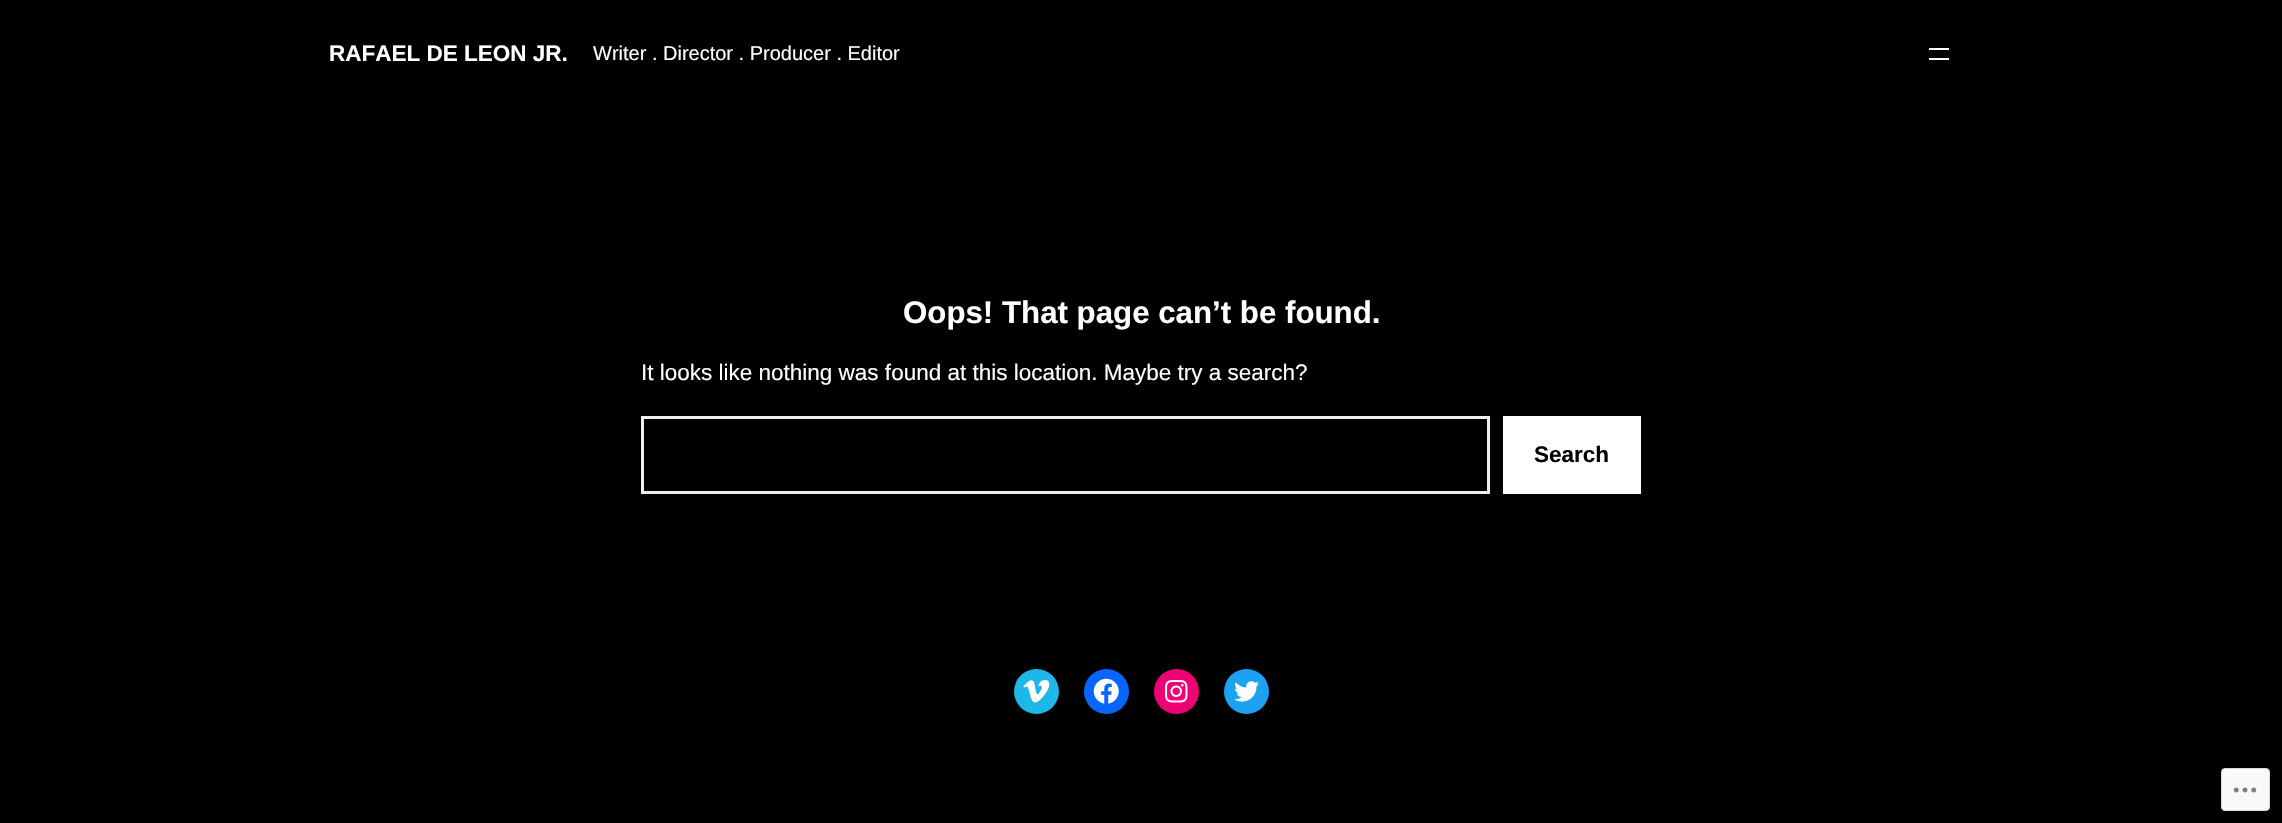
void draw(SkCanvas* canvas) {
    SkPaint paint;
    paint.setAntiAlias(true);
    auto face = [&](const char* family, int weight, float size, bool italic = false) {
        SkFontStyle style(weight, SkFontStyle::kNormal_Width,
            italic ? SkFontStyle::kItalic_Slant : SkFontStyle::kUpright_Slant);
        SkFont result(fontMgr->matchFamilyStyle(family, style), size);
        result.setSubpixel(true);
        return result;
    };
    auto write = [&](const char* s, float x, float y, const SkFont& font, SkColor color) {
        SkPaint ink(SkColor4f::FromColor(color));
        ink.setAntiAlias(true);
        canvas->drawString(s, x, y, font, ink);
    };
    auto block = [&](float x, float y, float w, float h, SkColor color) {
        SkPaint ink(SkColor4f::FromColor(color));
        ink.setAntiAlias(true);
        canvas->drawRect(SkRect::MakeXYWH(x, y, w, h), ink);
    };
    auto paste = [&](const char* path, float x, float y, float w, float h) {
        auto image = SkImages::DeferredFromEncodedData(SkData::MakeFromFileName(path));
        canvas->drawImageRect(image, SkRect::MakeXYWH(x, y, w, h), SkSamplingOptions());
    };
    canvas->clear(SK_ColorBLACK);
    auto kFont1 = face("Liberation Sans", 700, 22.5f);
    write("RAFAEL DE LEON JR.", 329, 61, kFont1, SK_ColorWHITE);
    auto kFont2 = face("Liberation Sans", 400, 20);
    write("Writer . Director . Producer . Editor", 593, 60, kFont2, SK_ColorWHITE);
    block(1929, 48, 20, 2, SK_ColorWHITE);
    block(1929, 58, 20, 2, SK_ColorWHITE);
    auto kFont3 = face("Liberation Sans", 700, 31.25f);
    write("Oops! That page can’t be found.", 903, 323, kFont3, SK_ColorWHITE);
    auto kFont4 = face("Liberation Sans", 400, 22.5f);
    write("It looks like nothing was found at this location. Maybe try a search?", 641, 380, kFont4, SK_ColorWHITE);
    paint.setStyle(SkPaint::kStroke_Style);
    paint.setStrokeWidth(3);
    paint.setColor(SkColorSetRGB(239, 239, 239));
    canvas->drawRect(SkRect::MakeXYWH(642.5f, 417.5f, 846, 75), paint);
    block(1503, 416, 138, 78, SK_ColorWHITE);
    write("Search", 1534, 462, kFont1, SK_ColorBLACK);
    paint.setStyle(SkPaint::kFill_Style);
    paint.setColor(SkColorSetRGB(30, 183, 234));
    canvas->drawCircle(1036.5f, 691.5f, 22.5f, paint);
    paste("pic1.png", 1023, 680, 27, 23);
    paint.setColor(SkColorSetRGB(8, 102, 255));
    canvas->drawCircle(1106.5f, 691.5f, 22.5f, paint);
    paste("pic2.png", 1093, 678, 26, 26);
    paint.setColor(SkColorSetRGB(240, 0, 117));
    canvas->drawCircle(1176.5f, 691.5f, 22.5f, paint);
    paste("pic3.png", 1165, 680, 23, 23);
    paint.setColor(SkColorSetRGB(29, 161, 242));
    canvas->drawCircle(1246.5f, 691.5f, 22.5f, paint);
    paste("pic4.png", 1234, 681, 25, 21);
    paint.setColor(SkColorSetRGB(250, 250, 250));
    canvas->drawRoundRect(SkRect::MakeXYWH(2221.5f, 768.5f, 48, 42), 3.5f, 3.5f, paint);
    paint.setStyle(SkPaint::kStroke_Style);
    paint.setStrokeWidth(1);
    paint.setColor(SkColorSetRGB(216, 216, 218));
    canvas->drawRoundRect(SkRect::MakeXYWH(2221.5f, 768.5f, 48, 42), 3.5f, 3.5f, paint);
    paste("pic5.png", 2233, 787, 24, 6);
}
